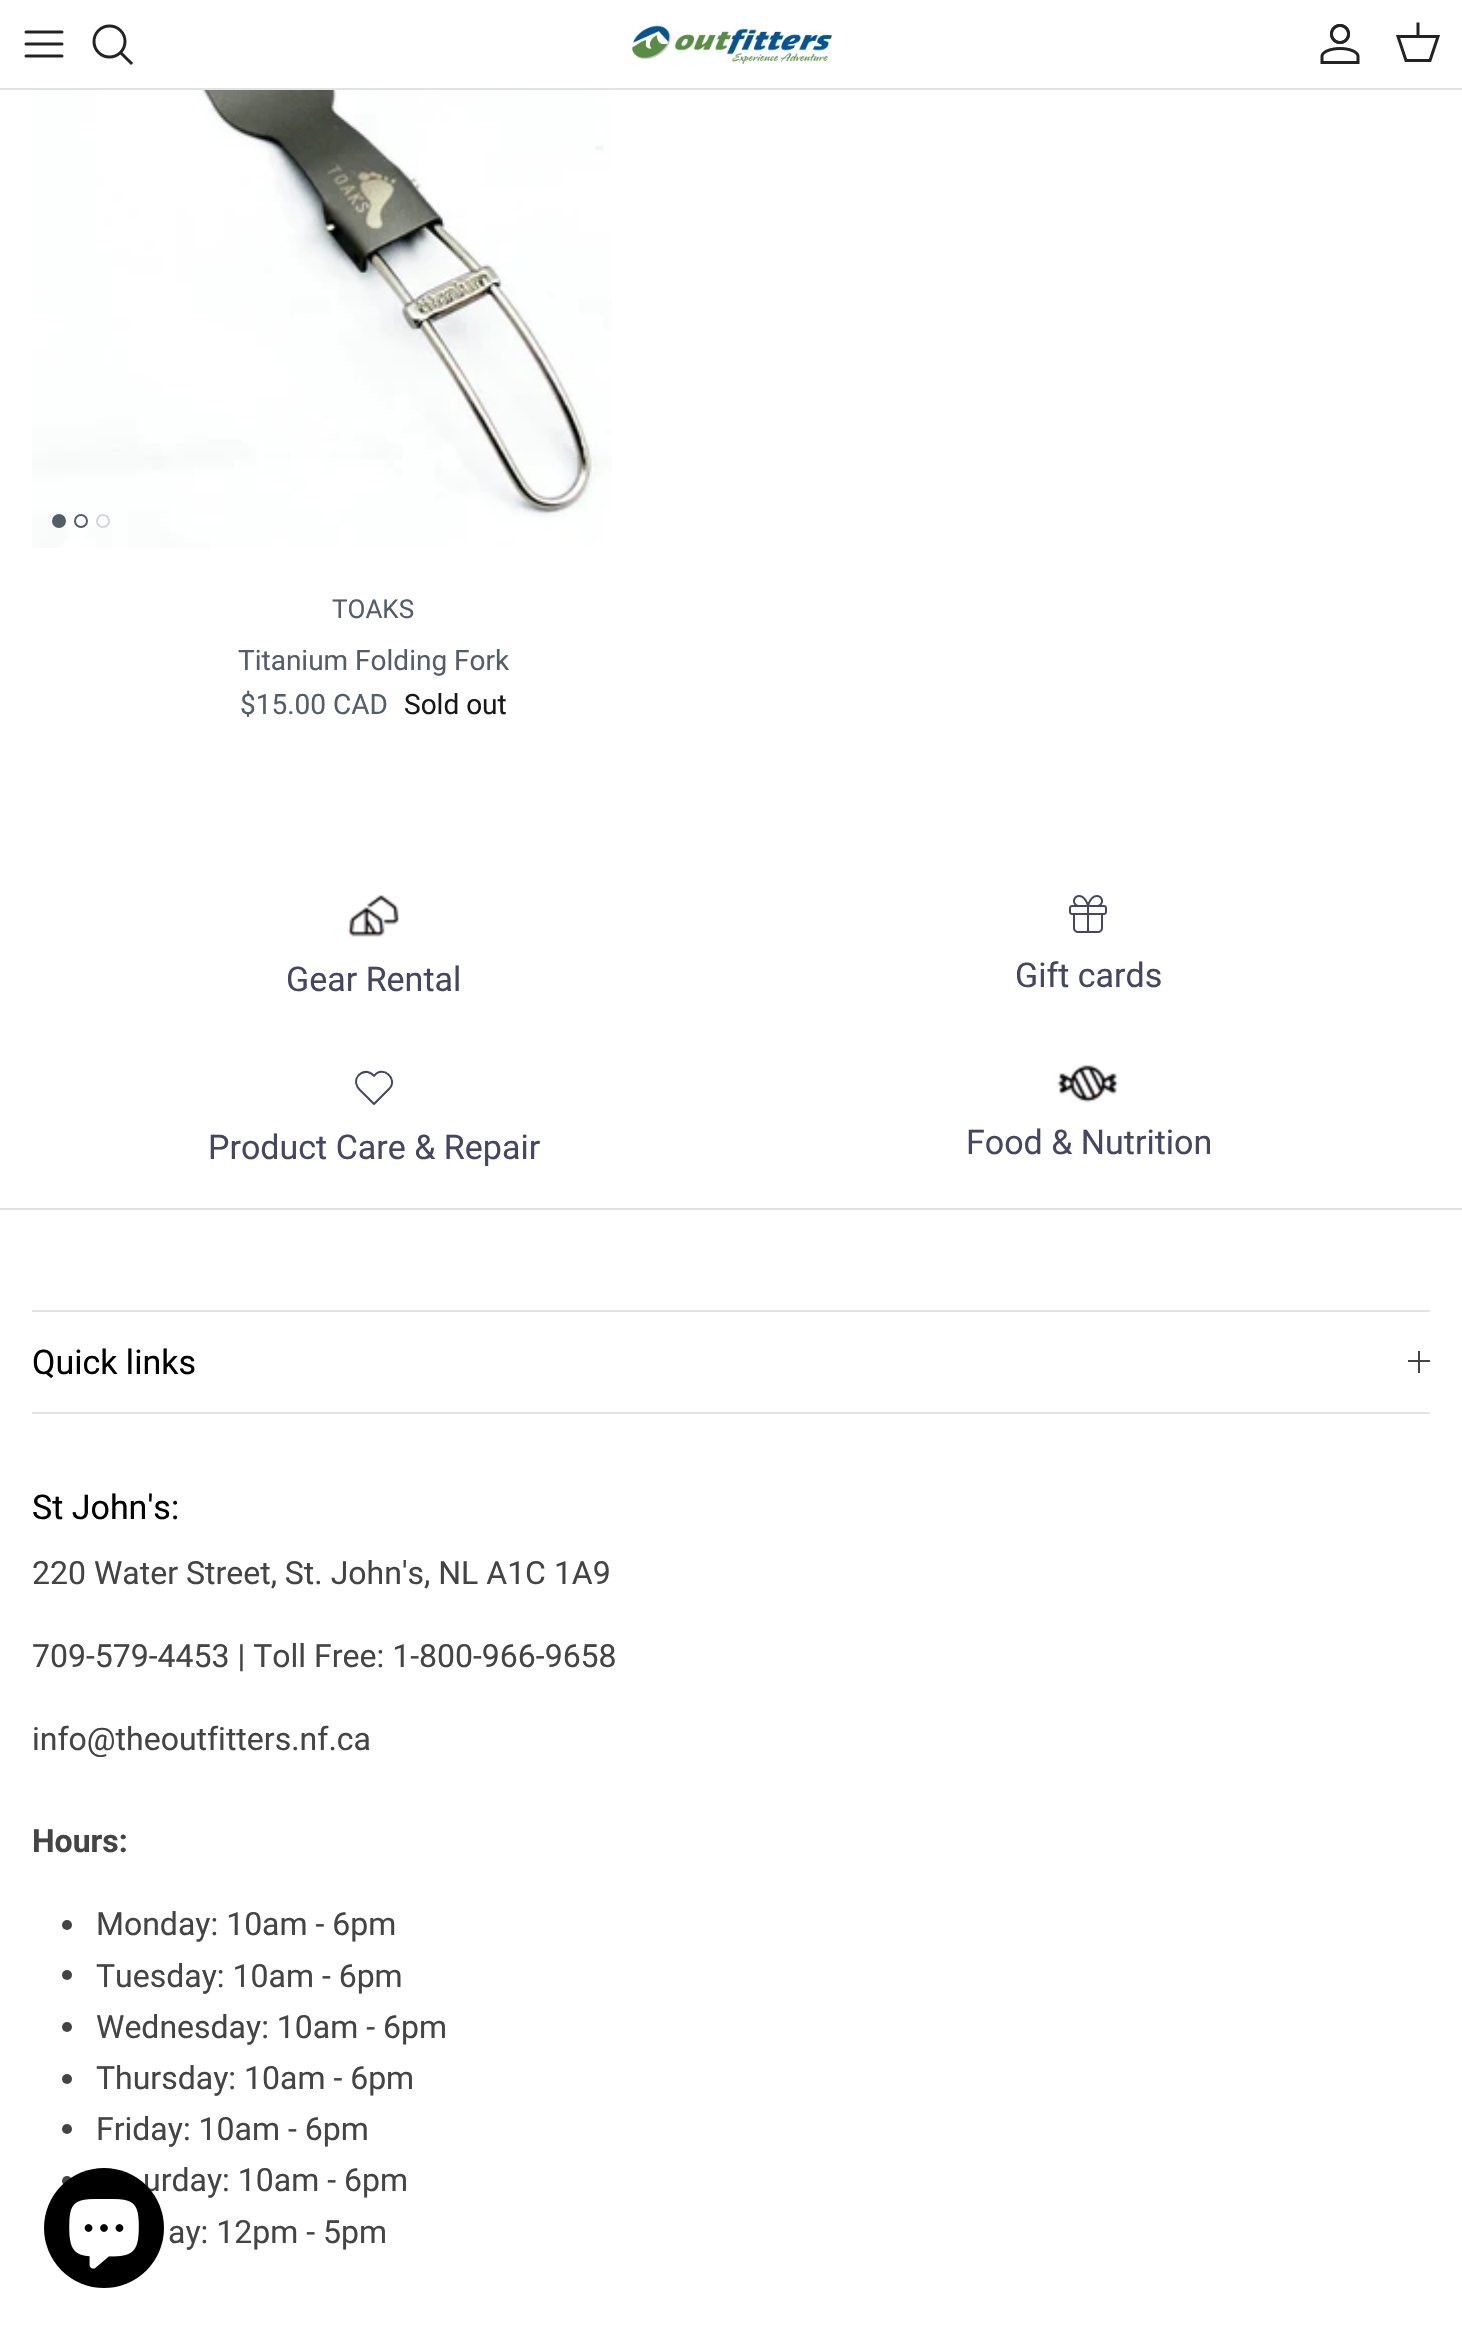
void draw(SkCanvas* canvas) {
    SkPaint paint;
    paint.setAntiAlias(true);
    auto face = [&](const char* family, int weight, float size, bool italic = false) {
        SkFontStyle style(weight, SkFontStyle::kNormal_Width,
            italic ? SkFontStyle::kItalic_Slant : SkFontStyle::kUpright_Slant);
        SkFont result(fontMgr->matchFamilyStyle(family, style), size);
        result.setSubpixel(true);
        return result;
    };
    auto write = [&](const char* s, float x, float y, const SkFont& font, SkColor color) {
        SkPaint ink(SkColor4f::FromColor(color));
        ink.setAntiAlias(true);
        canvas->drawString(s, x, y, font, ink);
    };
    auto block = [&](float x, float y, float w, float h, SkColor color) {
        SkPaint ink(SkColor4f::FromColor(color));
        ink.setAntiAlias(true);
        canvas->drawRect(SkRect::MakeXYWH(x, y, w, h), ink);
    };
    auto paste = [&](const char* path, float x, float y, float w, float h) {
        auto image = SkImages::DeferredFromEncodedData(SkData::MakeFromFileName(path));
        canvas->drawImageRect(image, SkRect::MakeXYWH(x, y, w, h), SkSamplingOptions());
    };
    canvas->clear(SK_ColorWHITE);
    block(0, 88, 1462, 2, SkColorSetRGB(226, 226, 226));
    paint.setStyle(SkPaint::kStroke_Style);
    paint.setStrokeWidth(3);
    paint.setStrokeCap(SkPaint::kRound_Cap);
    paint.setStrokeJoin(SkPaint::kRound_Join);
    paint.setColor(SkColorSetRGB(35, 35, 35));
    canvas->drawPath(SkPathBuilder().moveTo(26, 44).lineTo(62, 44).moveTo(26, 32).lineTo(62, 32).moveTo(26, 56).lineTo(62, 56).detach(), paint);
    paint.setStrokeCap(SkPaint::kButt_Cap);
    paint.setStrokeJoin(SkPaint::kMiter_Join);
    canvas->drawCircle(109.5f, 41.5f, 15.5f, paint);
    paint.setStrokeCap(SkPaint::kSquare_Cap);
    canvas->drawPath(SkPathBuilder().moveTo(122, 54).lineTo(131, 63).detach(), paint);
    paste("pic1.png", 631, 25, 201, 39);
    paste("pic2.png", 1320, 24, 40, 40);
    paint.setStrokeCap(SkPaint::kButt_Cap);
    canvas->drawPath(SkPathBuilder().moveTo(1398, 36.5f).lineTo(1438, 36.5f).lineTo(1430, 60.5f).lineTo(1406, 60.5f).close().detach(), paint);
    paint.setStrokeCap(SkPaint::kSquare_Cap);
    canvas->drawPath(SkPathBuilder().moveTo(1418, 36).lineTo(1418, 24).detach(), paint);
    paste("pic3.png", 32, 90, 580, 458);
    paint.setStyle(SkPaint::kFill_Style);
    paint.setColor(SkColorSetRGB(84, 94, 104));
    canvas->drawCircle(59, 521, 6, paint);
    paint.setStyle(SkPaint::kStroke_Style);
    paint.setStrokeWidth(2);
    paint.setStrokeCap(SkPaint::kButt_Cap);
    canvas->drawCircle(59, 521, 6, paint);
    canvas->drawCircle(81, 521, 6, paint);
    paint.setColor(SkColorSetRGB(210, 214, 217));
    canvas->drawCircle(103, 521, 6, paint);
    auto kFont1 = face("Roboto", 400, 26);
    write("TOAKS", 332, 618, kFont1, SkColorSetRGB(84, 94, 104));
    auto kFont2 = face("Roboto", 400, 28);
    write("Titanium Folding Fork", 238, 670, kFont2, SkColorSetRGB(84, 94, 104));
    write("$15.00 CAD", 240, 714, kFont2, SkColorSetRGB(84, 94, 104));
    write("Sold out", 404, 714, kFont2, SkColorSetRGB(23, 23, 23));
    paste("pic4.png", 347, 895, 52, 42);
    auto kFont3 = face("Roboto", 400, 34);
    write("Gear Rental", 286, 991, kFont3, SkColorSetRGB(69, 69, 100));
    paste("pic5.png", 1069, 895, 38, 38);
    write("Gift cards", 1015, 987, kFont3, SkColorSetRGB(69, 69, 100));
    paint.setStrokeCap(SkPaint::kRound_Cap);
    paint.setStrokeJoin(SkPaint::kRound_Join);
    paint.setColor(SkColorSetRGB(69, 69, 100));
    canvas->drawPath(SkPathBuilder().moveTo(389, 1089).lineTo(374, 1104).lineTo(364, 1094).cubicTo(362, 1092, 359, 1089.5f, 357.5f, 1087).cubicTo(351, 1076, 366.5f, 1066, 374, 1076).cubicTo(382.5f, 1064.5f, 399, 1079, 389, 1089).detach(), paint);
    write("Product Care & Repair", 208, 1159, kFont3, SkColorSetRGB(69, 69, 100));
    paste("pic6.png", 1057, 1065, 62, 38);
    write("Food & Nutrition", 966, 1154, kFont3, SkColorSetRGB(69, 69, 100));
    block(0, 1208, 1462, 2, SkColorSetRGB(224, 224, 224));
    block(32, 1310, 1398, 2, SkColorSetRGB(227, 227, 227));
    block(32, 1412, 1398, 2, SkColorSetRGB(227, 227, 227));
    write("Quick links", 32, 1374, kFont3, SK_ColorBLACK);
    block(1418, 1351, 2, 22, SkColorSetRGB(68, 68, 68));
    block(1408, 1360, 22, 2, SkColorSetRGB(68, 68, 68));
    write("St John's:", 32, 1519, kFont3, SK_ColorBLACK);
    auto kFont4 = face("Roboto", 400, 32);
    write("220 Water Street, St. John's, NL A1C 1A9", 32, 1584, kFont4, SkColorSetRGB(68, 68, 68));
    write("709-579-4453 | Toll Free: 1-800-966-9658", 32, 1667, kFont4, SkColorSetRGB(68, 68, 68));
    write("info@theoutfitters.nf.ca", 32, 1750, kFont4, SkColorSetRGB(68, 68, 68));
    auto kFont5 = face("Roboto", 700, 32);
    write("Hours:", 32, 1852, kFont5, SkColorSetRGB(68, 68, 68));
    paint.setStyle(SkPaint::kFill_Style);
    paint.setColor(SkColorSetRGB(68, 68, 68));
    canvas->drawCircle(67, 1925, 5, paint);
    write("Monday: 10am - 6pm", 96, 1935, kFont4, SkColorSetRGB(68, 68, 68));
    canvas->drawCircle(67, 1975, 5, paint);
    write("Tuesday: 10am - 6pm", 96, 1987, kFont4, SkColorSetRGB(68, 68, 68));
    canvas->drawCircle(67, 2027, 5, paint);
    write("Wednesday: 10am - 6pm", 96, 2038, kFont4, SkColorSetRGB(68, 68, 68));
    canvas->drawCircle(67, 2079, 5, paint);
    write("Thursday: 10am - 6pm", 96, 2089, kFont4, SkColorSetRGB(68, 68, 68));
    canvas->drawCircle(67, 2129, 5, paint);
    write("Friday: 10am - 6pm", 96, 2140, kFont4, SkColorSetRGB(68, 68, 68));
    canvas->drawCircle(67, 2181, 5, paint);
    write("urday: 10am - 6pm", 143, 2191, kFont4, SkColorSetRGB(68, 68, 68));
    write("ay: 12pm - 5pm", 168, 2243, kFont4, SkColorSetRGB(68, 68, 68));
    paint.setColor(SK_ColorBLACK);
    canvas->drawCircle(104, 2228, 60, paint);
    paste("pic7.png", 69, 2199, 70, 70);
}
